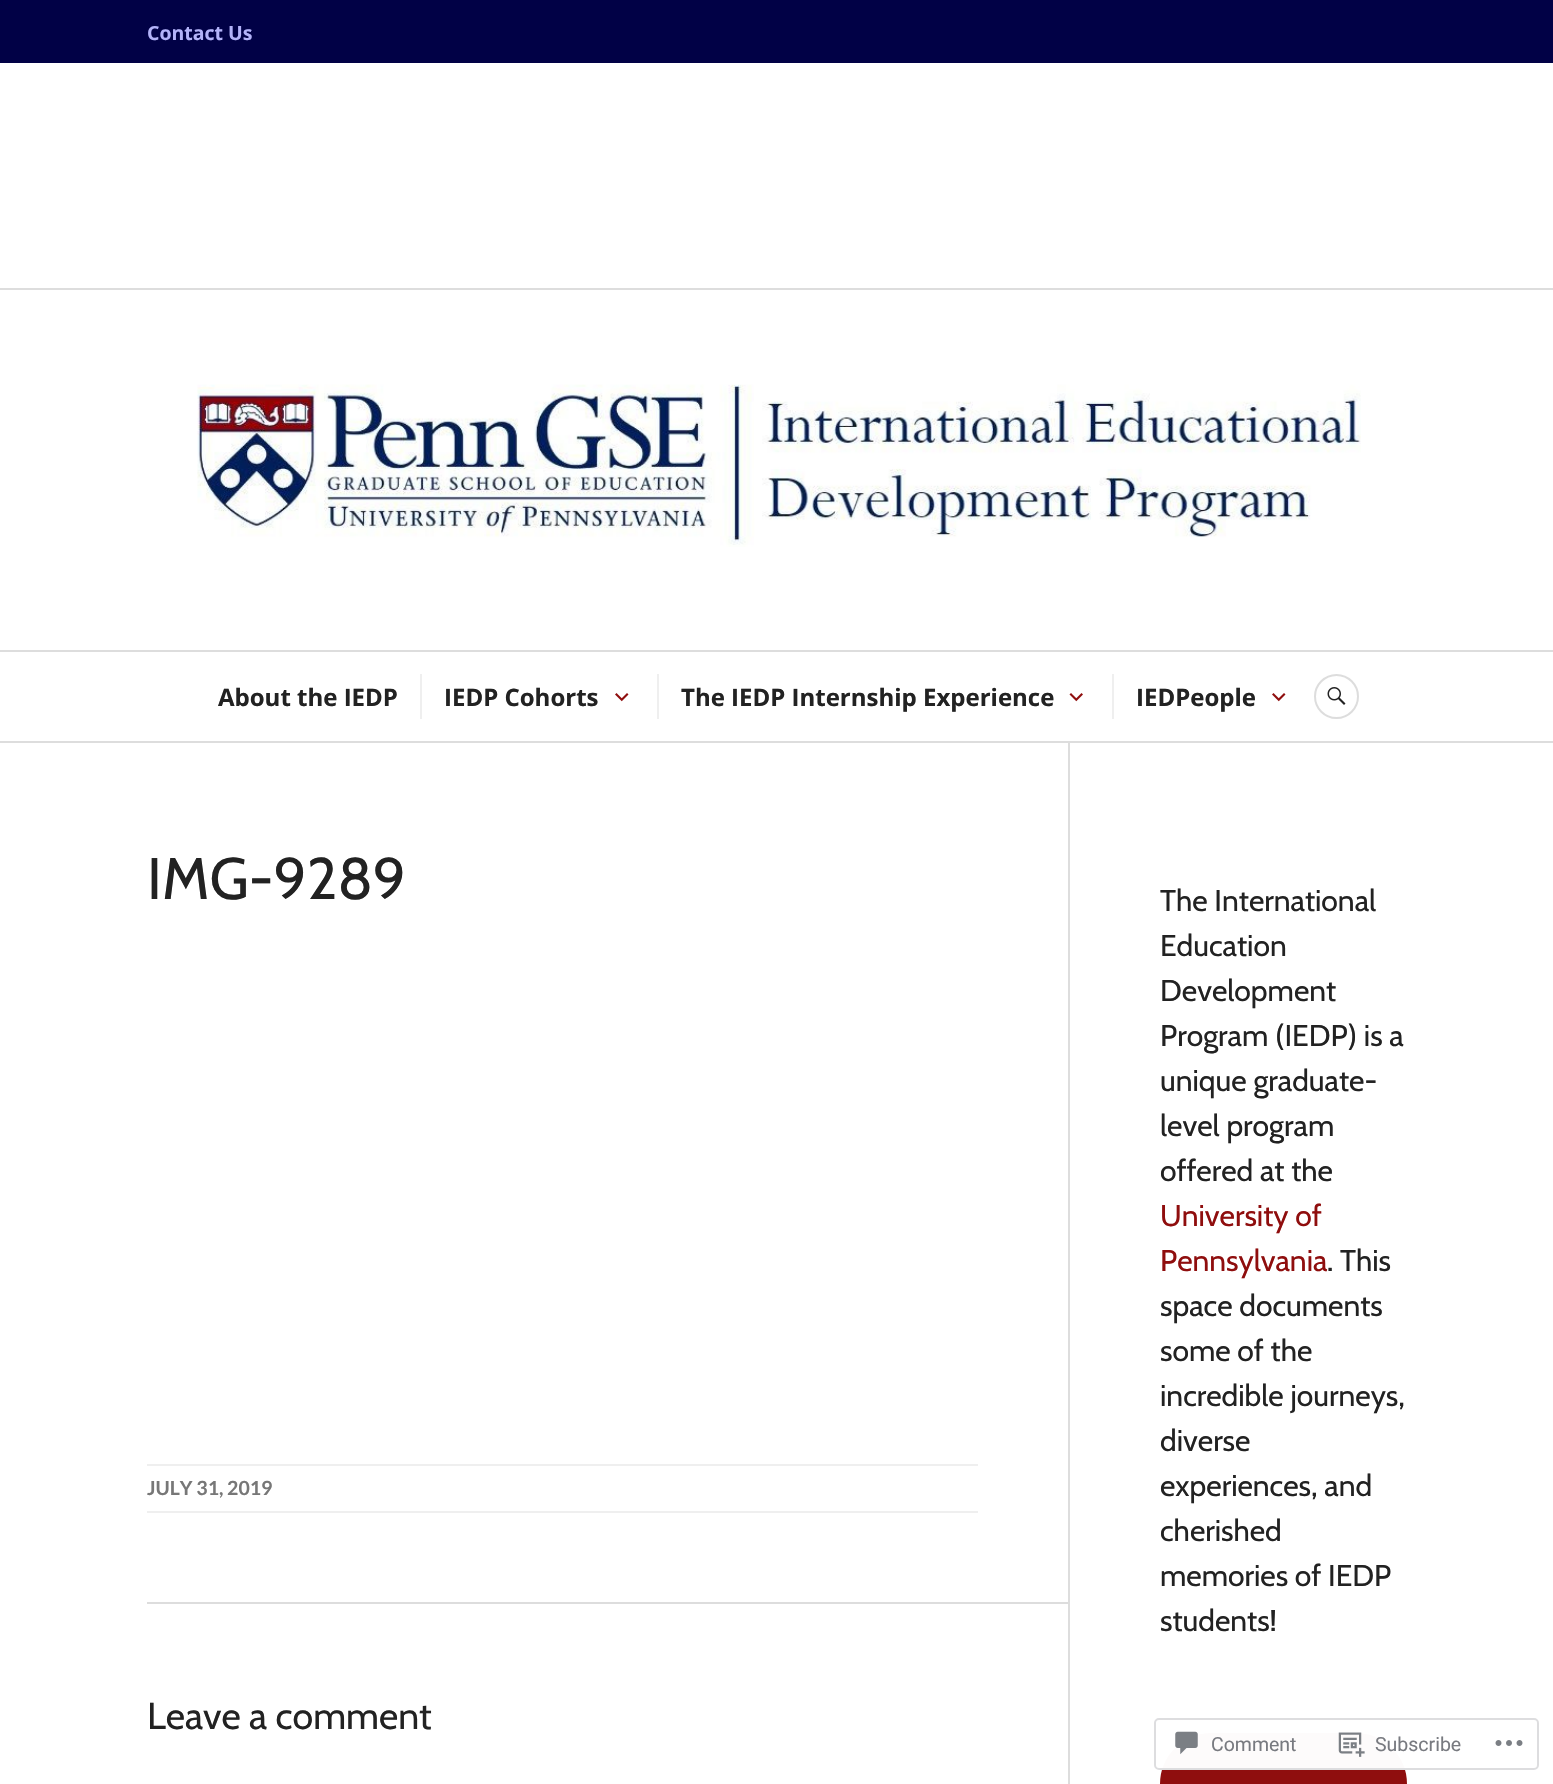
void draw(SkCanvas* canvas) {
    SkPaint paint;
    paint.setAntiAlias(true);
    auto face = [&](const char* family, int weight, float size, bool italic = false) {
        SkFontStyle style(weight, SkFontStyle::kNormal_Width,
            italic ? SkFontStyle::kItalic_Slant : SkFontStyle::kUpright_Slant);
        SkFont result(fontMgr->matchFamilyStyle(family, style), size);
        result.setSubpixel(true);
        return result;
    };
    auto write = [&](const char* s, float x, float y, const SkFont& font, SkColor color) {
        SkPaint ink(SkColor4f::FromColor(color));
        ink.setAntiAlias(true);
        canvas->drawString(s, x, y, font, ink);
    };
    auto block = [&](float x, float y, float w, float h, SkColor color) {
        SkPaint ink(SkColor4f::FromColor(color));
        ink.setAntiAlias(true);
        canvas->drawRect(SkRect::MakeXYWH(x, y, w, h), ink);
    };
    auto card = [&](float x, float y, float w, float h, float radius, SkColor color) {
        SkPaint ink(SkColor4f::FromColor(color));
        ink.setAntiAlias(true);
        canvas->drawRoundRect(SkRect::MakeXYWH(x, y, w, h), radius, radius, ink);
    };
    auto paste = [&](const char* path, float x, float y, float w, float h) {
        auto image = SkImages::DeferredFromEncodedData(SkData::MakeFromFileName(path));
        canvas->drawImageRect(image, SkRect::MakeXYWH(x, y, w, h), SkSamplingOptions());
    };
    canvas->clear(SK_ColorWHITE);
    block(0, 741, 1553, 2, SkColorSetRGB(221, 221, 221));
    block(0, 0, 1553, 63, SkColorSetRGB(1, 1, 70));
    auto kFont1 = face("Open Sans", 700, 19.5f);
    write("Contact Us", 147, 40, kFont1, SkColorSetRGB(179, 179, 249));
    block(0, 288, 1553, 2, SkColorSetRGB(221, 221, 221));
    paste("pic1.png", 197, 384, 1164, 163);
    block(0, 650, 1553, 2, SkColorSetRGB(221, 221, 221));
    auto kFont2 = face("Open Sans", 700, 24);
    write("About the IEDP", 218, 706, kFont2, SkColorSetRGB(34, 34, 34));
    block(420, 674, 2, 45, SkColorSetRGB(239, 239, 239));
    write("IEDP Cohorts", 444, 706, kFont2, SkColorSetRGB(34, 34, 34));
    paste("pic2.png", 615, 693, 14, 9);
    block(657, 674, 2, 45, SkColorSetRGB(239, 239, 239));
    write("The IEDP Internship Experience", 681, 706, kFont2, SkColorSetRGB(34, 34, 34));
    paste("pic3.png", 1069, 693, 14, 9);
    block(1112, 674, 2, 45, SkColorSetRGB(239, 239, 239));
    write("IEDPeople", 1136, 706, kFont2, SkColorSetRGB(34, 34, 34));
    paste("pic2.png", 1272, 693, 14, 9);
    paint.setStyle(SkPaint::kStroke_Style);
    paint.setStrokeWidth(2);
    paint.setColor(SkColorSetRGB(221, 221, 221));
    canvas->drawCircle(1336.5f, 696.5f, 21.5f, paint);
    paste("pic4.png", 1327, 687, 19, 18);
    block(1068, 743, 2, 1041, SkColorSetRGB(221, 221, 221));
    auto kFont3 = face("Cabin", 400, 58.5f);
    write("IMG-9289", 147, 899, kFont3, SkColorSetRGB(34, 34, 34));
    block(147, 1464, 831, 2, SkColorSetRGB(239, 239, 239));
    block(147, 1511, 831, 2, SkColorSetRGB(239, 239, 239));
    auto kFont4 = face("Lato", 700, 19.5f);
    write("JULY 31, 2019", 147, 1495, kFont4, SkColorSetRGB(119, 119, 119));
    block(147, 1602, 921, 2, SkColorSetRGB(221, 221, 221));
    auto kFont5 = face("Cabin", 400, 37.5f);
    write("Leave a comment", 147, 1729, kFont5, SkColorSetRGB(34, 34, 34));
    auto kFont6 = face("Cabin", 400, 30);
    write("The International", 1160, 911, kFont6, SkColorSetRGB(34, 34, 34));
    write("Education", 1160, 956, kFont6, SkColorSetRGB(34, 34, 34));
    write("Development", 1160, 1001, kFont6, SkColorSetRGB(34, 34, 34));
    write("Program (IEDP) is a", 1160, 1046, kFont6, SkColorSetRGB(34, 34, 34));
    write("unique graduate-", 1160, 1091, kFont6, SkColorSetRGB(34, 34, 34));
    write("level program", 1160, 1136, kFont6, SkColorSetRGB(34, 34, 34));
    write("offered at the", 1160, 1181, kFont6, SkColorSetRGB(34, 34, 34));
    write("University of", 1160, 1226, kFont6, SkColorSetRGB(143, 14, 14));
    write("Pennsylvania", 1160, 1271, kFont6, SkColorSetRGB(143, 14, 14));
    write(". This", 1327, 1271, kFont6, SkColorSetRGB(34, 34, 34));
    write("space documents", 1160, 1316, kFont6, SkColorSetRGB(34, 34, 34));
    write("some of the", 1160, 1361, kFont6, SkColorSetRGB(34, 34, 34));
    write("incredible journeys,", 1160, 1406, kFont6, SkColorSetRGB(34, 34, 34));
    write("diverse", 1160, 1451, kFont6, SkColorSetRGB(34, 34, 34));
    write("experiences, and", 1160, 1496, kFont6, SkColorSetRGB(34, 34, 34));
    write("cherished", 1160, 1541, kFont6, SkColorSetRGB(34, 34, 34));
    write("memories of IEDP", 1160, 1586, kFont6, SkColorSetRGB(34, 34, 34));
    write("students!", 1160, 1631, kFont6, SkColorSetRGB(34, 34, 34));
    paint.setStyle(SkPaint::kFill_Style);
    paint.setColor(SkColorSetRGB(143, 14, 14));
    canvas->drawRoundRect(SkRect::MakeXYWH(1161.5f, 1734.5f, 244, 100), 50, 50, paint);
    paint.setStyle(SkPaint::kStroke_Style);
    paint.setStrokeWidth(3);
    canvas->drawRoundRect(SkRect::MakeXYWH(1161.5f, 1734.5f, 244, 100), 50, 50, paint);
    card(1154, 1718, 385, 52, 5, SkColorSetARGB(250, 255, 255, 255));
    paint.setStrokeWidth(2);
    paint.setColor(SkColorSetARGB(250, 220, 220, 222));
    canvas->drawRoundRect(SkRect::MakeXYWH(1155, 1719, 383, 50), 4, 4, paint);
    paste("pic5.png", 1175, 1731, 23, 24);
    auto kFont7 = face("Roboto", 400, 19.5f);
    write("Comment", 1211, 1751, kFont7, SkColorSetRGB(120, 122, 128));
    paste("pic6.png", 1338, 1732, 27, 25);
    write("Subscribe", 1375, 1751, kFont7, SkColorSetRGB(120, 122, 128));
    paste("pic7.png", 1495, 1740, 28, 6);
}
